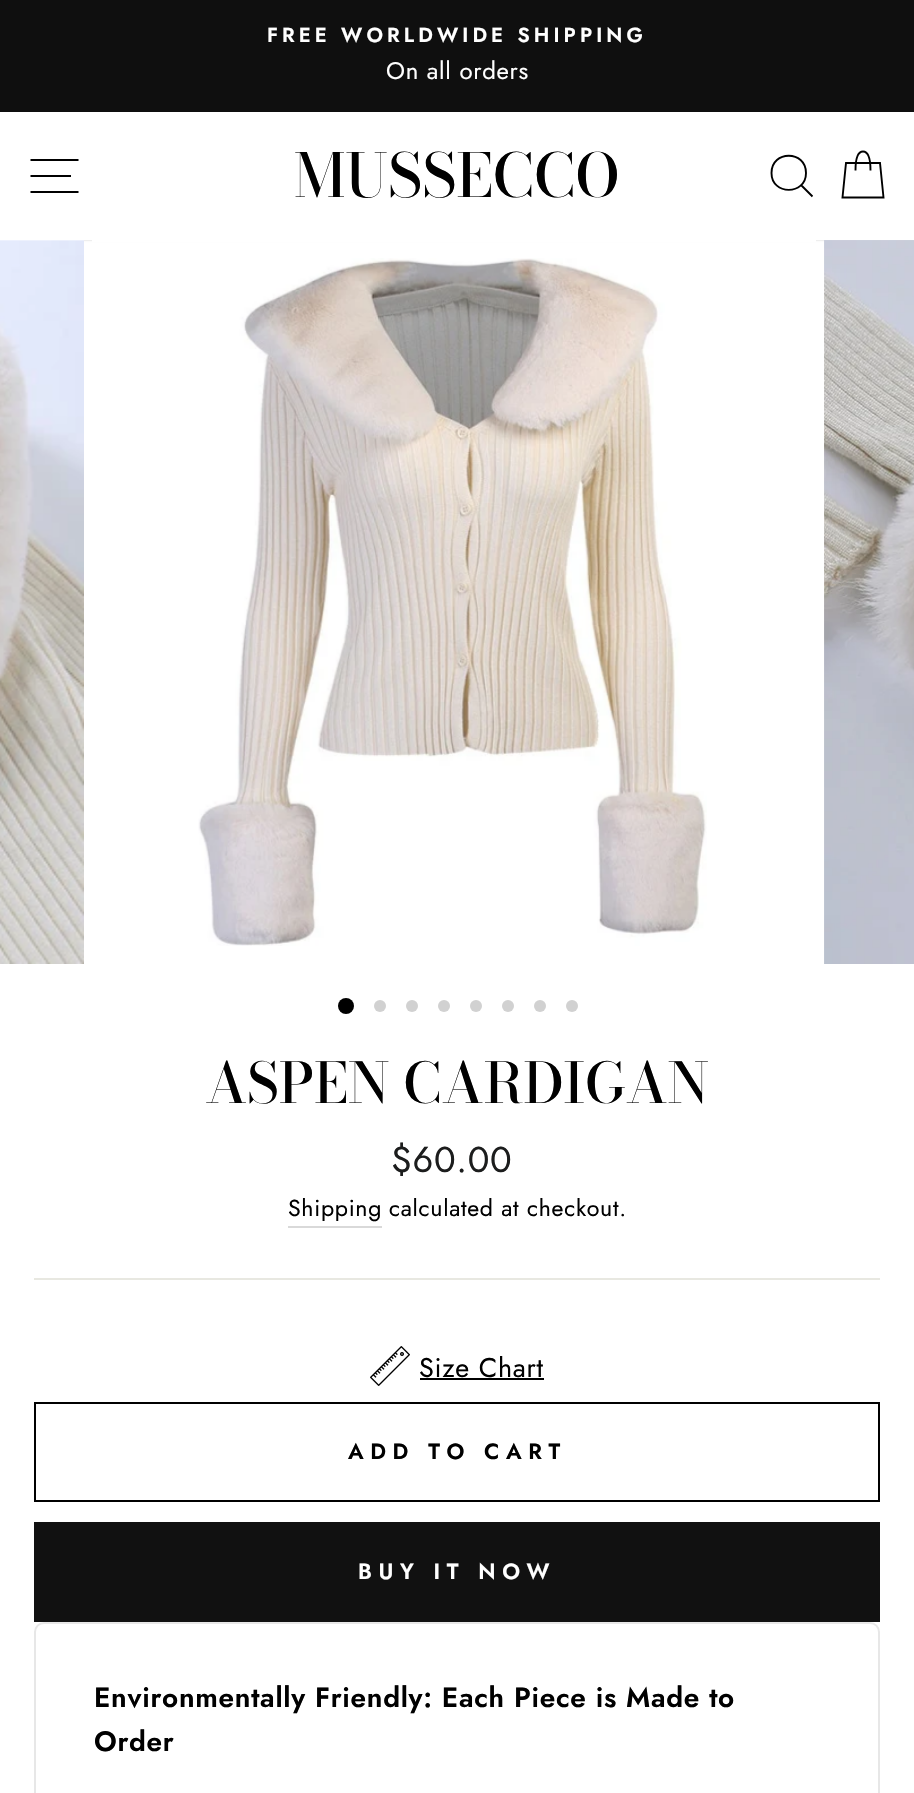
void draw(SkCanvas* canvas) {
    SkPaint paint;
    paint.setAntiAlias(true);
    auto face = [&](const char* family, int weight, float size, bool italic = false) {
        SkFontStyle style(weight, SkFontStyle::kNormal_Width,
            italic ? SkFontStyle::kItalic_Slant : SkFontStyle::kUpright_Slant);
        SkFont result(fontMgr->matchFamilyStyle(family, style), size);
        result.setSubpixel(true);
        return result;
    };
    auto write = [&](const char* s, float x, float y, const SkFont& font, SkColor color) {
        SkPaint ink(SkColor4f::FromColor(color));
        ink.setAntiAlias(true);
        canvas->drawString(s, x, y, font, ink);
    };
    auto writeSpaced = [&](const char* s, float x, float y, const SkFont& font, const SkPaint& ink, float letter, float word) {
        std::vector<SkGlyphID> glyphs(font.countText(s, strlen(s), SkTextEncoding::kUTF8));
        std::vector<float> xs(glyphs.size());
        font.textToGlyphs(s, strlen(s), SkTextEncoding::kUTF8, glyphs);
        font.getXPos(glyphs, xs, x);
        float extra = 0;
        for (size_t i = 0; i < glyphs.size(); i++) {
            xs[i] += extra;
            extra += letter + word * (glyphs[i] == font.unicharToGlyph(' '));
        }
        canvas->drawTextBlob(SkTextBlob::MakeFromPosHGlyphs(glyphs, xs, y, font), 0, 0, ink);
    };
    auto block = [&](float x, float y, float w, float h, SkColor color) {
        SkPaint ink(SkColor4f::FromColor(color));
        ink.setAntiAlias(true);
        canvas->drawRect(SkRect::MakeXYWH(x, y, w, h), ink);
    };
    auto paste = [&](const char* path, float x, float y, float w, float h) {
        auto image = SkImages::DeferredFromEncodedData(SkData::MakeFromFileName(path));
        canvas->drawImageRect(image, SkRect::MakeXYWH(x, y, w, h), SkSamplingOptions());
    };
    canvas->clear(SK_ColorWHITE);
    block(0, 0, 914, 112, SkColorSetRGB(15, 15, 15));
    auto kFont1 = face("Jost", 600, 20.4f);
    paint.setColor(SK_ColorWHITE);
    writeSpaced("FREE WORLDWIDE SHIPPING", 267, 42, kFont1, paint, 4.1f, 0);
    auto kFont2 = face("Jost", 400, 24);
    writeSpaced("On all orders", 386, 79, kFont2, paint, 0.7f, 0);
    canvas->save();
    canvas->clipPath(SkPathBuilder(SkPathFillType::kEvenOdd).moveTo(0, 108).lineTo(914, 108).lineTo(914, 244).lineTo(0, 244).close().moveTo(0, 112).lineTo(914, 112).lineTo(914, 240).lineTo(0, 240).close().detach(), true);
    paint.setColor(SkColorSetARGB(51, 0, 0, 0));
    paint.setMaskFilter(SkMaskFilter::MakeBlur(kNormal_SkBlurStyle, 1));
    canvas->drawRect(SkRect::MakeXYWH(0, 112, 914, 128), paint);
    paint.setMaskFilter(nullptr);
    canvas->restore();
    paint.setStyle(SkPaint::kStroke_Style);
    paint.setStrokeWidth(1.9f);
    paint.setColor(SK_ColorBLACK);
    canvas->drawPath(SkPathBuilder().moveTo(30.5f, 160).lineTo(78.5f, 160).moveTo(30.5f, 176).lineTo(71, 176).moveTo(30.5f, 192).lineTo(78.5f, 192).detach(), paint);
    auto kFont3 = face("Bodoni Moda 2", 500, 60);
    write("MUSSECCO", 294, 197, kFont3, SK_ColorBLACK);
    canvas->drawPath(SkPathBuilder().moveTo(806, 173).cubicTo(806, 195.5f, 771.5f, 195.5f, 771.5f, 173).cubicTo(771.5f, 150, 806, 150, 806, 173).close().moveTo(812.5f, 196.5f).lineTo(801.5f, 185.5f).detach(), paint);
    canvas->drawPath(SkPathBuilder().moveTo(855.5f, 170.5f).cubicTo(855.5f, 155.5f, 859, 151.5f, 863, 151.5f).cubicTo(867, 151.5f, 870.5f, 155.5f, 870.5f, 170.5f).moveTo(846, 163).lineTo(880, 163).lineTo(883.5f, 197.5f).lineTo(842.5f, 197.5f).close().detach(), paint);
    block(0, 240, 84, 1, SK_ColorWHITE);
    paste("pic1.png", 0, 240, 84, 724);
    block(92, 240, 724, 2, SK_ColorWHITE);
    paste("pic2.png", 198, 258, 509, 688);
    paste("pic3.png", 824, 240, 90, 724);
    paint.setStyle(SkPaint::kFill_Style);
    canvas->drawCircle(346, 1006, 8, paint);
    paint.setColor(SkColorSetRGB(209, 209, 209));
    canvas->drawCircle(380, 1006, 6, paint);
    canvas->drawCircle(412, 1006, 6, paint);
    canvas->drawCircle(444, 1006, 6, paint);
    canvas->drawCircle(476, 1006, 6, paint);
    canvas->drawCircle(508, 1006, 6, paint);
    canvas->drawCircle(540, 1006, 6, paint);
    canvas->drawCircle(572, 1006, 6, paint);
    auto kFont4 = face("Bodoni Moda", 500, 55.5f);
    write("ASPEN CARDIGAN", 205, 1103, kFont4, SK_ColorBLACK);
    auto kFont5 = face("Jost", 400, 36);
    paint.setColor(SkColorSetRGB(28, 29, 29));
    writeSpaced("$60.00", 391, 1172, kFont5, paint, 0.7f, 0);
    block(288, 1226, 94, 2, SkColorSetRGB(217, 217, 217));
    auto kFont6 = face("Jost", 400, 23.1f);
    paint.setColor(SK_ColorBLACK);
    writeSpaced("Shipping", 288, 1216, kFont6, paint, 0.7f, 0);
    writeSpaced("calculated at checkout.", 389, 1216, kFont6, paint, 0.7f, 0);
    block(34, 1278, 846, 2, SkColorSetRGB(232, 232, 225));
    paste("pic4.png", 370, 1346, 40, 40);
    auto kFont7 = face("Jost", 400, 27);
    writeSpaced("Size Chart", 419, 1377, kFont7, paint, 0.7f, 0);
    block(420, 1378, 124, 2, SK_ColorBLACK);
    paint.setStyle(SkPaint::kStroke_Style);
    paint.setStrokeWidth(2);
    canvas->drawRect(SkRect::MakeXYWH(35, 1403, 844, 98), paint);
    auto kFont8 = face("Jost", 600, 22);
    paint.setStyle(SkPaint::kFill_Style);
    writeSpaced("ADD TO CART", 348, 1459, kFont8, paint, 6.6f, 0);
    block(34, 1522, 846, 100, SkColorSetRGB(17, 17, 17));
    paint.setColor(SK_ColorWHITE);
    writeSpaced("BUY IT NOW", 358, 1579, kFont8, paint, 6.6f, 0);
    paint.setStyle(SkPaint::kStroke_Style);
    paint.setColor(SkColorSetRGB(231, 231, 231));
    canvas->drawRoundRect(SkRect::MakeXYWH(35, 1623, 844, 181), 9, 9, paint);
    auto kFont9 = face("Jost", 600, 28);
    paint.setStyle(SkPaint::kFill_Style);
    paint.setColor(SK_ColorBLACK);
    writeSpaced("Environmentally Friendly: Each Piece is Made to", 94, 1707, kFont9, paint, 0.7f, 0);
    writeSpaced("Order", 94, 1751, kFont9, paint, 0.7f, 0);
}
